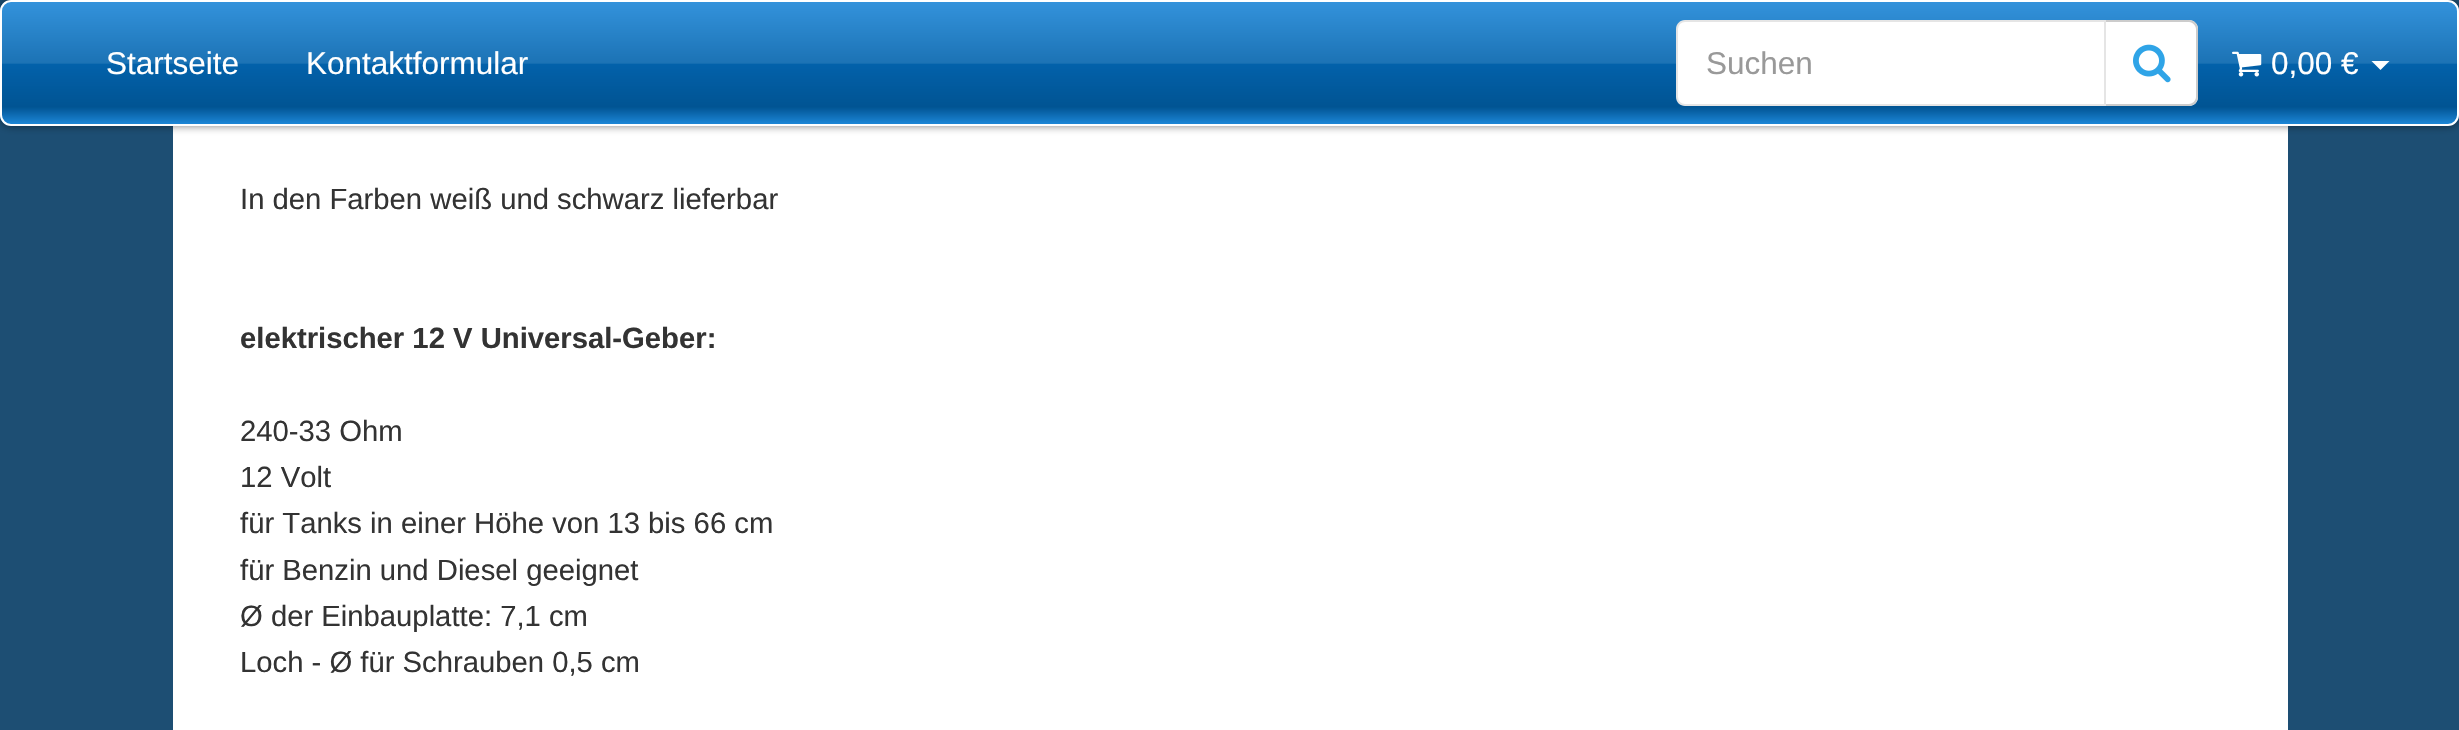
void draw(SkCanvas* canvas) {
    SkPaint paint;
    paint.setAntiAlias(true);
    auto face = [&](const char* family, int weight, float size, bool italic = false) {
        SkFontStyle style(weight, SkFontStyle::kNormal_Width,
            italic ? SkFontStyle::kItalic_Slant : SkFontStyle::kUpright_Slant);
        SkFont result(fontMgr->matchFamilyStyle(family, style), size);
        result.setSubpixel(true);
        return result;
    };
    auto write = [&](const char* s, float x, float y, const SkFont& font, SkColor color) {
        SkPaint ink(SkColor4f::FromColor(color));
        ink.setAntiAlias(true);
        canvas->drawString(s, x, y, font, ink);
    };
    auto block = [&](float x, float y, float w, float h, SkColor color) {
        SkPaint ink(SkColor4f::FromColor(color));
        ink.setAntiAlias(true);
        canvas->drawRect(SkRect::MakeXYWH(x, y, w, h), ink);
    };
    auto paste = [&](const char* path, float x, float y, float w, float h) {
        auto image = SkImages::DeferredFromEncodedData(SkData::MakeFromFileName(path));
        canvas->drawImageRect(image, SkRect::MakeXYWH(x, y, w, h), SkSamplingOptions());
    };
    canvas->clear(SkColorSetRGB(29, 78, 115));
    block(173, 126, 2115, 604, SK_ColorWHITE);
    paint.setColor(SkColorSetARGB(128, 0, 0, 0));
    paint.setMaskFilter(SkMaskFilter::MakeBlur(kNormal_SkBlurStyle, 4.5f));
    canvas->drawRoundRect(SkRect::MakeXYWH(0, 0, 2459, 126), 11, 11, paint);
    paint.setMaskFilter(nullptr);
    canvas->save();
    canvas->clipPath(SkPathBuilder().moveTo(11, 0).lineTo(2448, 0).cubicTo(2454, 0, 2459, 5, 2459, 11).lineTo(2459, 115).cubicTo(2459, 121, 2454, 126, 2448, 126).lineTo(11, 126).cubicTo(5, 126, 0, 121, 0, 115).lineTo(0, 11).cubicTo(0, 5, 5, 0, 11, 0).close().detach(), true);
    {
        const SkColor colors[] = {SkColorSetRGB(51, 146, 219), SkColorSetRGB(28, 115, 181), SkColorSetRGB(2, 97, 170), SkColorSetRGB(1, 84, 147), SkColorSetRGB(28, 134, 215)};
        const float stops[] = {0, 0.5f, 0.51f, 0.86f, 1};
        const SkPoint ends[] = {{1230, 2.2f}, {1230, 124}};
        paint.setShader(SkGradientShader::MakeLinear(ends, colors, stops, 5, SkTileMode::kClamp));
        paint.setAlpha(255);
    }
    canvas->drawRect(SkRect::MakeXYWH(0, 2, 2459, 122), paint);
    canvas->restore();
    paint.setStyle(SkPaint::kStroke_Style);
    paint.setStrokeWidth(2);
    paint.setShader(nullptr);
    paint.setColor(SK_ColorWHITE);
    canvas->drawRoundRect(SkRect::MakeXYWH(1, 1, 2457, 124), 10, 10, paint);
    auto kFont1 = face("Liberation Sans", 400, 31.5f);
    write("Startseite", 106, 74, kFont1, SK_ColorWHITE);
    write("Kontaktformular", 306, 74, kFont1, SK_ColorWHITE);
    paint.setStyle(SkPaint::kFill_Style);
    canvas->drawPath(SkPathBuilder().moveTo(1685, 20).lineTo(2106, 20).lineTo(2106, 106).lineTo(1685, 106).cubicTo(1680, 106, 1676, 102, 1676, 97).lineTo(1676, 29).cubicTo(1676, 24, 1680, 20, 1685, 20).close().detach(), paint);
    paint.setStyle(SkPaint::kStroke_Style);
    paint.setColor(SkColorSetARGB(26, 0, 0, 0));
    canvas->drawPath(SkPathBuilder().moveTo(1685, 21).lineTo(2105, 21).lineTo(2105, 105).lineTo(1685, 105).cubicTo(1680.5f, 105, 1677, 101.5f, 1677, 97).lineTo(1677, 29).cubicTo(1677, 24.5f, 1680.5f, 21, 1685, 21).close().detach(), paint);
    write("Suchen", 1706, 74, kFont1, SkColorSetRGB(153, 153, 153));
    paint.setStyle(SkPaint::kFill_Style);
    paint.setColor(SK_ColorWHITE);
    canvas->drawPath(SkPathBuilder().moveTo(2106, 20).lineTo(2189, 20).cubicTo(2194, 20, 2198, 24, 2198, 29).lineTo(2198, 97).cubicTo(2198, 102, 2194, 106, 2189, 106).lineTo(2106, 106).close().detach(), paint);
    paint.setColor(SkColorSetRGB(204, 204, 204));
    canvas->drawPath(SkPathBuilder(SkPathFillType::kEvenOdd).moveTo(2106, 20).lineTo(2189, 20).cubicTo(2194, 20, 2198, 24, 2198, 29).lineTo(2198, 97).cubicTo(2198, 102, 2194, 106, 2189, 106).lineTo(2106, 106).close().moveTo(2106, 22).lineTo(2189, 22).cubicTo(2193, 22, 2196, 26, 2196, 29).lineTo(2196, 97).cubicTo(2196, 100, 2193, 104, 2189, 104).lineTo(2106, 104).close().detach(), paint);
    paste("pic1.png", 2133, 44, 38, 39);
    paste("pic2.png", 2232, 51, 30, 26);
    write("0,00 €", 2271, 74, kFont1, SK_ColorWHITE);
    paint.setColor(SK_ColorWHITE);
    canvas->drawPath(SkPathBuilder().moveTo(2371.5f, 61).lineTo(2389.5f, 61).lineTo(2380.5f, 70).close().detach(), paint);
    auto kFont2 = face("Liberation Sans", 400, 29.25f);
    write("In den Farben weiß und schwarz lieferbar", 240, 209, kFont2, SkColorSetRGB(51, 51, 51));
    auto kFont3 = face("Liberation Sans", 700, 29.25f);
    write("elektrischer 12 V Universal-Geber:", 240, 348, kFont3, SkColorSetRGB(51, 51, 51));
    write("240-33 Ohm", 240, 441, kFont2, SkColorSetRGB(51, 51, 51));
    write("12 Volt", 240, 487, kFont2, SkColorSetRGB(51, 51, 51));
    write("für Tanks in einer Höhe von 13 bis 66 cm", 240, 533, kFont2, SkColorSetRGB(51, 51, 51));
    write("für Benzin und Diesel geeignet", 240, 580, kFont2, SkColorSetRGB(51, 51, 51));
    write("Ø der Einbauplatte: 7,1 cm", 240, 626, kFont2, SkColorSetRGB(51, 51, 51));
    write("Loch - Ø für Schrauben 0,5 cm", 240, 672, kFont2, SkColorSetRGB(51, 51, 51));
}
